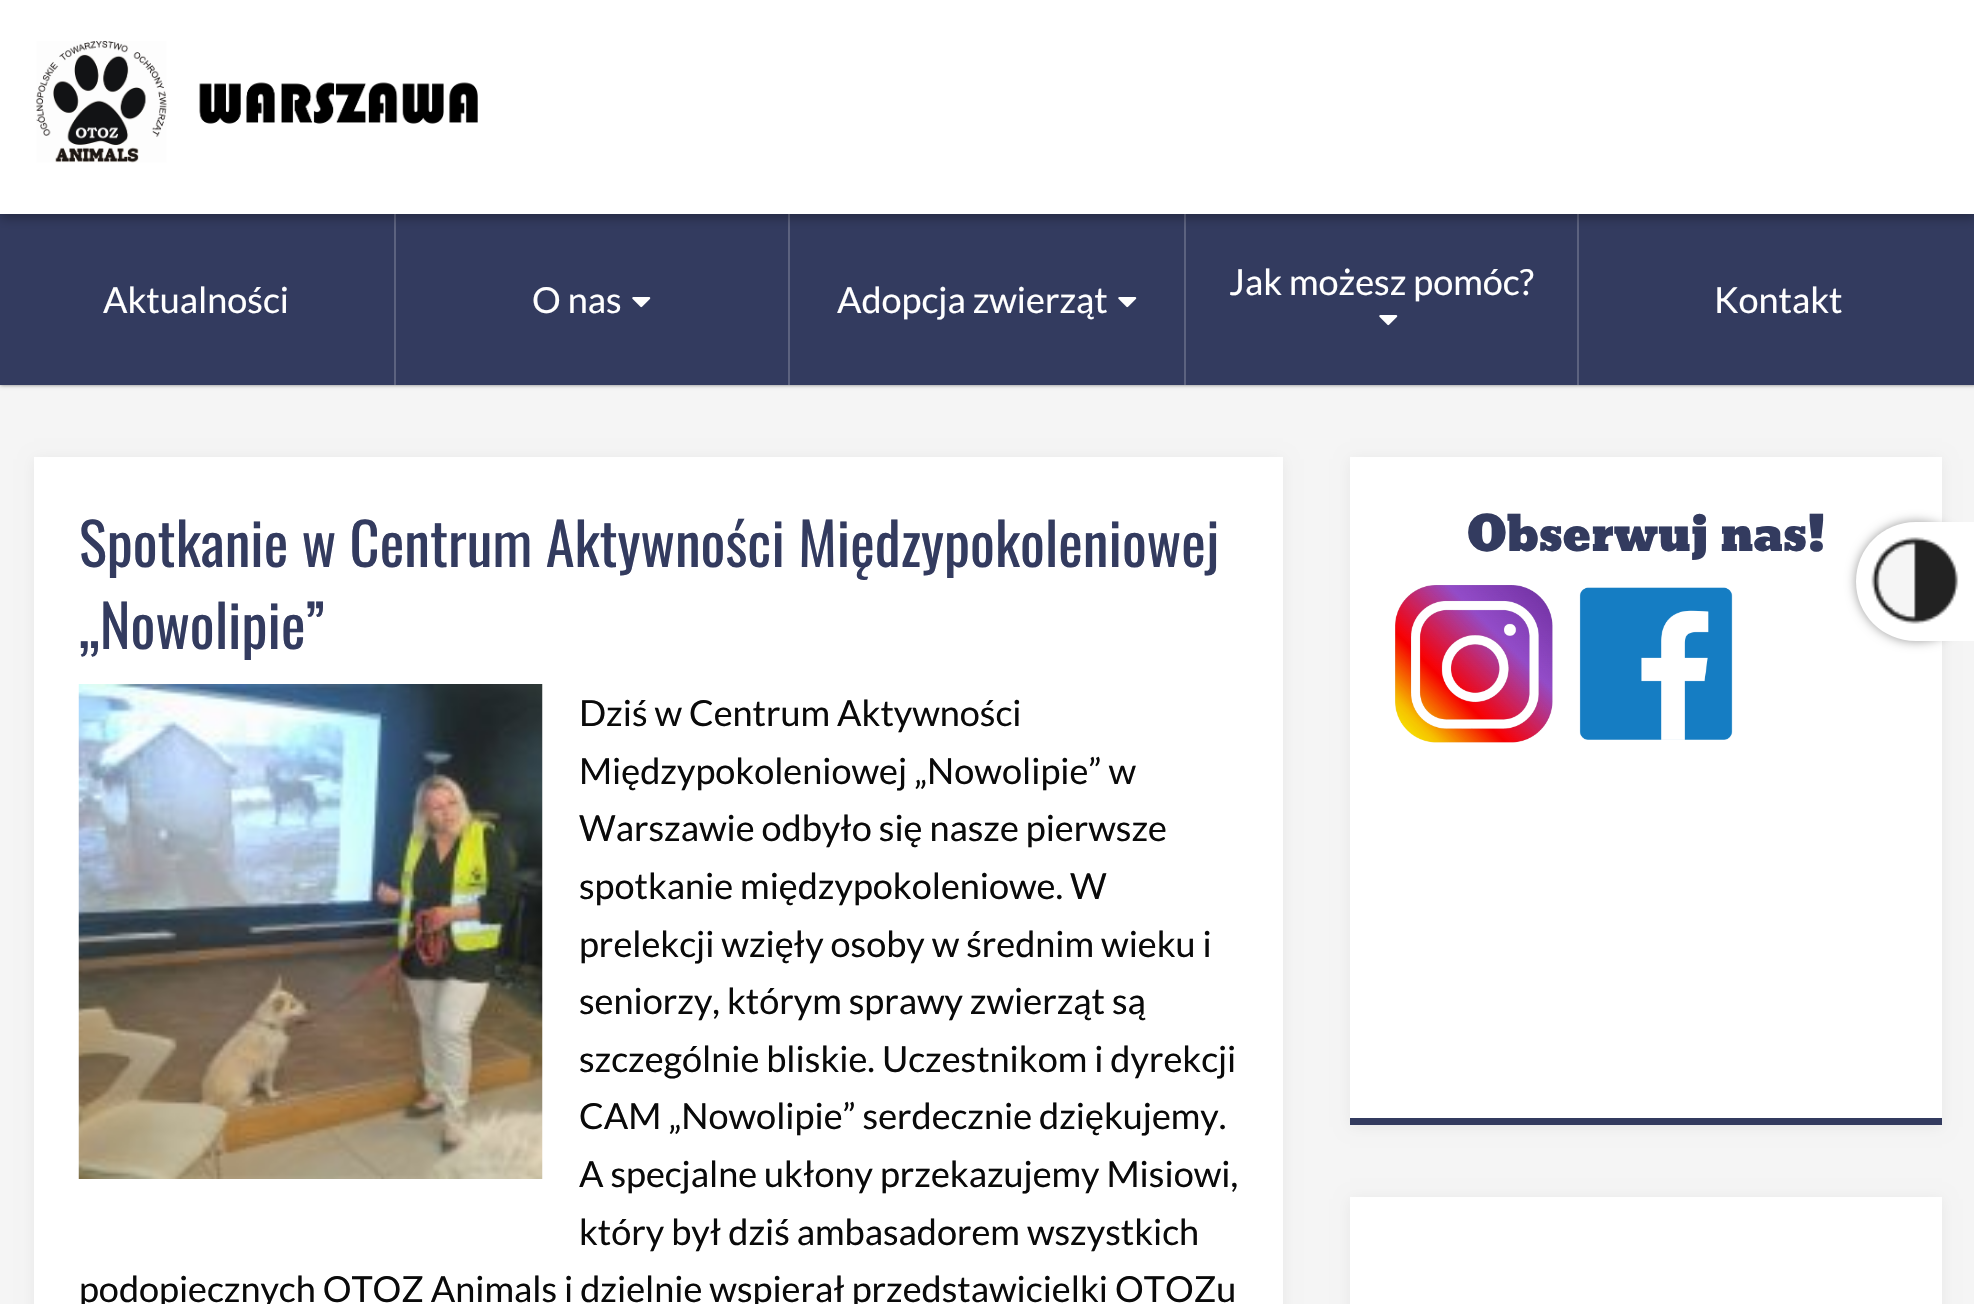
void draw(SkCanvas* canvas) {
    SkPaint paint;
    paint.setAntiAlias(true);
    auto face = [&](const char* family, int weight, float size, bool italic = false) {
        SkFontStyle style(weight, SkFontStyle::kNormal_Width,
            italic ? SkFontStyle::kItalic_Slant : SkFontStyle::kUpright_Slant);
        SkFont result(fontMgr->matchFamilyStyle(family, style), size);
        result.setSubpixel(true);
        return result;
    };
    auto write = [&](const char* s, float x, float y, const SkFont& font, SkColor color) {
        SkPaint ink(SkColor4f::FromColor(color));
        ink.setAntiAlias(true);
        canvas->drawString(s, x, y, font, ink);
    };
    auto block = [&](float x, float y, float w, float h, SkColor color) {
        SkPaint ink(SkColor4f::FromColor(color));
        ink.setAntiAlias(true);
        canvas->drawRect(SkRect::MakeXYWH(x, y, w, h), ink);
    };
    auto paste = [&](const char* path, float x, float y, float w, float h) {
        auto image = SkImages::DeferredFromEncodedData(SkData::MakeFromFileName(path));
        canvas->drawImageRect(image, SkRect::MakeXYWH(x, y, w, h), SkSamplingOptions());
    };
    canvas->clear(SkColorSetRGB(245, 245, 245));
    paint.setColor(SkColorSetARGB(128, 0, 0, 0));
    paint.setMaskFilter(SkMaskFilter::MakeBlur(kNormal_SkBlurStyle, 2));
    canvas->drawRect(SkRect::MakeXYWH(0, 214, 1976, 171), paint);
    paint.setMaskFilter(nullptr);
    block(0, 214, 1974, 171, SkColorSetRGB(51, 59, 95));
    block(394, 214, 2, 171, SkColorSetRGB(92, 98, 127));
    block(788, 214, 2, 171, SkColorSetRGB(92, 98, 127));
    block(1184, 214, 2, 171, SkColorSetRGB(92, 98, 127));
    block(1577, 214, 2, 171, SkColorSetRGB(92, 98, 127));
    paint.setColor(SkColorSetARGB(77, 0, 0, 0));
    paint.setMaskFilter(SkMaskFilter::MakeBlur(kNormal_SkBlurStyle, 5.5f));
    canvas->drawRect(SkRect::MakeXYWH(0, 5, 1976, 213), paint);
    paint.setMaskFilter(nullptr);
    block(0, 0, 1974, 214, SK_ColorWHITE);
    paste("pic1.png", 36, 41, 442, 122);
    auto kFont1 = face("Lato", 400, 36);
    write("Aktualności", 103, 313, kFont1, SK_ColorWHITE);
    write("O nas", 532, 313, kFont1, SK_ColorWHITE);
    paste("pic2.png", 632, 297, 19, 11);
    write("Adopcja zwierząt", 837, 313, kFont1, SK_ColorWHITE);
    paste("pic2.png", 1118, 297, 19, 11);
    write("Jak możesz pomóc?", 1229, 295, kFont1, SK_ColorWHITE);
    paste("pic2.png", 1379, 315, 19, 11);
    write("Kontakt", 1714, 313, kFont1, SK_ColorWHITE);
    paint.setColor(SkColorSetRGB(231, 231, 231));
    paint.setMaskFilter(SkMaskFilter::MakeBlur(kNormal_SkBlurStyle, 7));
    canvas->drawRect(SkRect::MakeXYWH(34, 459, 1249, 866), paint);
    paint.setMaskFilter(nullptr);
    block(34, 457, 1249, 847, SK_ColorWHITE);
    auto kFont2 = face("Oswald", 400, 58.5f);
    write("Spotkanie w Centrum Aktywności Międzypokoleniowej", 79, 567, kFont2, SkColorSetRGB(51, 59, 95));
    write("„Nowolipie”", 79, 649, kFont2, SkColorSetRGB(51, 59, 95));
    paste("pic3.png", 78, 684, 465, 495);
    write("Dziś w Centrum Aktywności", 579, 726, kFont1, SkColorSetRGB(10, 10, 10));
    write("Międzypokoleniowej „Nowolipie” w", 579, 784, kFont1, SkColorSetRGB(10, 10, 10));
    write("Warszawie odbyło się nasze pierwsze", 579, 841, kFont1, SkColorSetRGB(10, 10, 10));
    write("spotkanie międzypokoleniowe. W", 579, 899, kFont1, SkColorSetRGB(10, 10, 10));
    write("prelekcji wzięły osoby w średnim wieku i", 579, 957, kFont1, SkColorSetRGB(10, 10, 10));
    write("seniorzy, którym sprawy zwierząt są", 579, 1014, kFont1, SkColorSetRGB(10, 10, 10));
    write("szczególnie bliskie. Uczestnikom i dyrekcji", 579, 1072, kFont1, SkColorSetRGB(10, 10, 10));
    write("CAM „Nowolipie” serdecznie dziękujemy.", 579, 1129, kFont1, SkColorSetRGB(10, 10, 10));
    write("A specjalne ukłony przekazujemy Misiowi,", 579, 1187, kFont1, SkColorSetRGB(10, 10, 10));
    write("który był dziś ambasadorem wszystkich", 579, 1245, kFont1, SkColorSetRGB(10, 10, 10));
    write("podopiecznych OTOZ Animals i dzielnie wspierał przedstawicielki OTOZu", 79, 1302, kFont1, SkColorSetRGB(10, 10, 10));
    paint.setMaskFilter(SkMaskFilter::MakeBlur(kNormal_SkBlurStyle, 7));
    canvas->drawRect(SkRect::MakeXYWH(1350, 459, 592, 668), paint);
    paint.setMaskFilter(nullptr);
    block(1350, 457, 592, 661, SK_ColorWHITE);
    block(1350, 1118, 592, 7, SkColorSetRGB(51, 59, 95));
    auto kFont3 = face("Bevan", 400, 46.75f);
    write("Obserwuj nas!", 1467, 551, kFont3, SkColorSetRGB(51, 59, 95));
    paste("pic4.png", 1395, 585, 158, 158);
    paste("pic5.png", 1579, 587, 154, 153);
    paint.setMaskFilter(SkMaskFilter::MakeBlur(kNormal_SkBlurStyle, 7));
    canvas->drawRect(SkRect::MakeXYWH(1350, 1199, 592, 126), paint);
    paint.setMaskFilter(nullptr);
    block(1350, 1197, 592, 107, SK_ColorWHITE);
    paint.setColor(SkColorSetARGB(102, 0, 0, 0));
    paint.setMaskFilter(SkMaskFilter::MakeBlur(kNormal_SkBlurStyle, 5.5f));
    canvas->drawRoundRect(SkRect::MakeXYWH(1856, 522, 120, 119), 59.5f, 59.5f, paint);
    paint.setMaskFilter(nullptr);
    paint.setColor(SK_ColorWHITE);
    canvas->drawPath(SkPathBuilder().moveTo(1915.5f, 522).lineTo(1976, 522).lineTo(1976, 641).lineTo(1915.5f, 641).cubicTo(1882.5f, 641, 1856, 614.5f, 1856, 581.5f).cubicTo(1856, 548.5f, 1882.5f, 522, 1915.5f, 522).close().detach(), paint);
    paste("pic6.png", 1871, 537, 88, 87);
}
